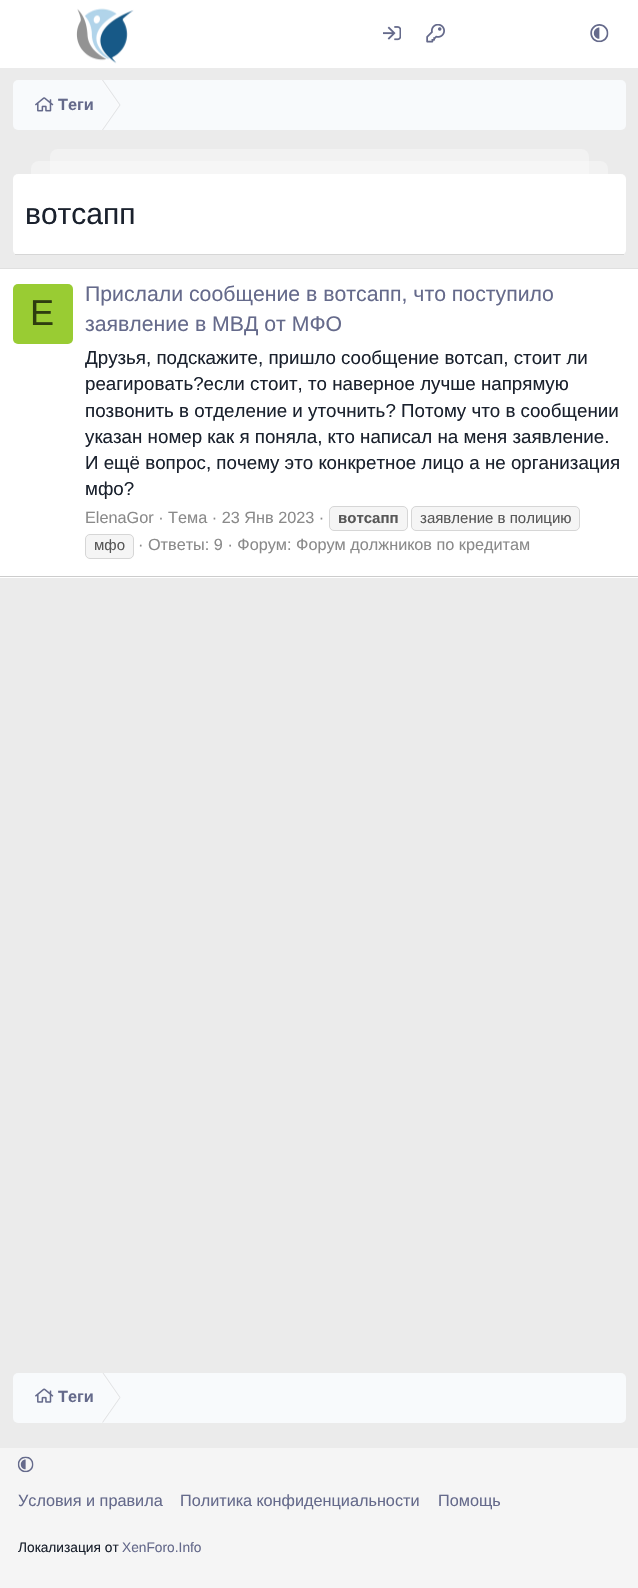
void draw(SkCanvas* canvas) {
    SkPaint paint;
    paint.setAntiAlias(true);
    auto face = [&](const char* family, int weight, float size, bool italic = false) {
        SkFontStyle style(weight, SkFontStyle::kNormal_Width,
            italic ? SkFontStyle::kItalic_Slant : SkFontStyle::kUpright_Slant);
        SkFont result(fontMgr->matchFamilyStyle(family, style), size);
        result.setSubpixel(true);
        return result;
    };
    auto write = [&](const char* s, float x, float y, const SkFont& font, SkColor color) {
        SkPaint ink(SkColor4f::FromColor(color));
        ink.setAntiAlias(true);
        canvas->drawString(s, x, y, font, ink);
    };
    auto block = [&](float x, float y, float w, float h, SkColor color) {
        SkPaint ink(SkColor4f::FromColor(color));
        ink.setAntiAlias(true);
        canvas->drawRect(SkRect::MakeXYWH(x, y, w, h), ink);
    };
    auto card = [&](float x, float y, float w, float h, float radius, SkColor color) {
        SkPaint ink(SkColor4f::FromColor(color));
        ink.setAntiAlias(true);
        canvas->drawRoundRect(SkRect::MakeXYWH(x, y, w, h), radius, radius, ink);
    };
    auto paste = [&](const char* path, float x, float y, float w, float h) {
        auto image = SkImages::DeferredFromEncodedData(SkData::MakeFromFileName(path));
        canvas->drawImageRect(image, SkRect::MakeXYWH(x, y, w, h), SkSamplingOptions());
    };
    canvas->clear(SkColorSetRGB(235, 235, 235));
    block(0, 0, 638, 68, SK_ColorWHITE);
    paste("pic1.png", 76, 8, 58, 56);
    paste("pic2.png", 383, 26, 18, 15);
    paste("pic3.png", 426, 24, 19, 19);
    paste("pic4.png", 590, 24, 19, 19);
    card(13, 80, 613, 50, 5, SkColorSetRGB(248, 250, 252));
    paste("pic5.png", 35, 97, 19, 15);
    auto kFont1 = face("Liberation Sans", 700, 16.25f);
    write("Теги", 58, 110, kFont1, SkColorSetRGB(101, 106, 139));
    paint.setColor(SkColorSetRGB(251, 252, 253));
    canvas->drawPath(SkPathBuilder().moveTo(100.5f, 80).lineTo(102, 80).lineTo(119.5f, 105).lineTo(118, 105).close().detach(), paint);
    paint.setColor(SkColorSetRGB(224, 225, 227));
    canvas->drawPath(SkPathBuilder().moveTo(102, 80).lineTo(103, 80).lineTo(120.5f, 105).lineTo(119.5f, 105).close().detach(), paint);
    paint.setColor(SkColorSetRGB(251, 252, 253));
    canvas->drawPath(SkPathBuilder().moveTo(118, 105).lineTo(119.5f, 105).lineTo(102, 130).lineTo(100.5f, 130).close().detach(), paint);
    paint.setColor(SkColorSetRGB(224, 225, 227));
    canvas->drawPath(SkPathBuilder().moveTo(119.5f, 105).lineTo(120.5f, 105).lineTo(103, 130).lineTo(102, 130).close().detach(), paint);
    card(13, 174, 613, 81, 5, SK_ColorWHITE);
    block(15, 254, 609, 1, SkColorSetRGB(214, 214, 214));
    card(31, 161, 577, 80, 8, SkColorSetARGB(89, 255, 255, 255));
    card(50, 149, 539, 80, 8, SkColorSetARGB(89, 255, 255, 255));
    auto kFont2 = face("Liberation Sans", 400, 30);
    write("вотсапп", 25, 224, kFont2, SkColorSetRGB(26, 33, 45));
    block(0, 269, 638, 309, SK_ColorWHITE);
    block(0, 268, 638, 1, SkColorSetRGB(224, 224, 224));
    block(0, 576, 638, 1, SkColorSetRGB(204, 204, 204));
    card(13, 284, 60, 60, 5, SkColorSetRGB(153, 204, 51));
    auto kFont3 = face("Liberation Sans", 400, 36);
    write("E", 30, 325, kFont3, SkColorSetRGB(46, 61, 15));
    auto kFont4 = face("Liberation Sans", 400, 21.25f);
    write("Прислали сообщение в вотсапп, что поступило", 85, 301, kFont4, SkColorSetRGB(101, 106, 139));
    write("заявление в МВД от МФО", 85, 331, kFont4, SkColorSetRGB(101, 106, 139));
    auto kFont5 = face("Liberation Sans", 400, 18.75f);
    write("Друзья, подскажите, пришло сообщение вотсап, стоит ли", 85, 364, kFont5, SkColorSetRGB(26, 33, 45));
    write("реагировать?если стоит, то наверное лучше напрямую", 85, 390, kFont5, SkColorSetRGB(26, 33, 45));
    write("позвонить в отделение и уточнить? Потому что в сообщении", 85, 417, kFont5, SkColorSetRGB(26, 33, 45));
    write("указан номер как я поняла, кто написал на меня заявление.", 85, 443, kFont5, SkColorSetRGB(26, 33, 45));
    write("И ещё вопрос, почему это конкретное лицо а не организация", 85, 469, kFont5, SkColorSetRGB(26, 33, 45));
    write("мфо?", 85, 495, kFont5, SkColorSetRGB(26, 33, 45));
    auto kFont6 = face("Liberation Sans", 400, 16.25f);
    write("ElenaGor · Тема · 23 Янв 2023 ·", 85, 523, kFont6, SkColorSetRGB(138, 138, 138));
    paint.setColor(SkColorSetRGB(245, 245, 245));
    canvas->drawRoundRect(SkRect::MakeXYWH(329.5f, 506.5f, 78, 24), 4.5f, 4.5f, paint);
    paint.setStyle(SkPaint::kStroke_Style);
    paint.setStrokeWidth(1);
    paint.setColor(SkColorSetRGB(214, 214, 214));
    canvas->drawRoundRect(SkRect::MakeXYWH(329.5f, 506.5f, 78, 24), 4.5f, 4.5f, paint);
    auto kFont7 = face("Liberation Sans", 700, 15);
    write("вотсапп", 338, 523, kFont7, SkColorSetRGB(87, 87, 87));
    paint.setStyle(SkPaint::kFill_Style);
    paint.setColor(SkColorSetRGB(245, 245, 245));
    canvas->drawRoundRect(SkRect::MakeXYWH(411.5f, 506.5f, 168, 24), 4.5f, 4.5f, paint);
    paint.setStyle(SkPaint::kStroke_Style);
    paint.setColor(SkColorSetRGB(214, 214, 214));
    canvas->drawRoundRect(SkRect::MakeXYWH(411.5f, 506.5f, 168, 24), 4.5f, 4.5f, paint);
    auto kFont8 = face("Liberation Sans", 400, 15);
    write("заявление в полицию", 420, 523, kFont8, SkColorSetRGB(87, 87, 87));
    paint.setStyle(SkPaint::kFill_Style);
    paint.setColor(SkColorSetRGB(245, 245, 245));
    canvas->drawRoundRect(SkRect::MakeXYWH(85.5f, 534.5f, 48, 24), 4.5f, 4.5f, paint);
    paint.setStyle(SkPaint::kStroke_Style);
    paint.setColor(SkColorSetRGB(214, 214, 214));
    canvas->drawRoundRect(SkRect::MakeXYWH(85.5f, 534.5f, 48, 24), 4.5f, 4.5f, paint);
    write("мфо", 94, 550, kFont8, SkColorSetRGB(87, 87, 87));
    write("· Ответы: 9 · Форум: Форум должников по кредитам", 138, 550, kFont6, SkColorSetRGB(138, 138, 138));
    card(13, 1373, 613, 50, 5, SkColorSetRGB(248, 250, 252));
    paste("pic6.png", 35, 1388, 19, 15);
    write("Теги", 58, 1402, kFont1, SkColorSetRGB(101, 106, 139));
    paint.setStyle(SkPaint::kFill_Style);
    paint.setColor(SkColorSetRGB(251, 252, 253));
    canvas->drawPath(SkPathBuilder().moveTo(102.5f, 1373).lineTo(119.5f, 1397.5f).lineTo(118, 1397.5f).lineTo(101, 1373).close().detach(), paint);
    paint.setColor(SkColorSetRGB(224, 225, 227));
    canvas->drawPath(SkPathBuilder().moveTo(103.5f, 1373).lineTo(120.5f, 1397.5f).lineTo(119.5f, 1397.5f).lineTo(102.5f, 1373).close().detach(), paint);
    paint.setColor(SkColorSetRGB(251, 252, 253));
    canvas->drawPath(SkPathBuilder().moveTo(118, 1397.5f).lineTo(119.5f, 1397.5f).lineTo(102, 1422.5f).lineTo(100.5f, 1422.5f).close().detach(), paint);
    paint.setColor(SkColorSetRGB(224, 225, 227));
    canvas->drawPath(SkPathBuilder().moveTo(119.5f, 1397.5f).lineTo(120.5f, 1397.5f).lineTo(103, 1422.5f).lineTo(102, 1422.5f).close().detach(), paint);
    block(0, 1448, 638, 140, SkColorSetRGB(245, 245, 245));
    paste("pic7.png", 17, 1456, 17, 17);
    write("Условия и правила", 18, 1506, kFont6, SkColorSetRGB(101, 106, 139));
    write("Политика конфиденциальности", 180, 1506, kFont6, SkColorSetRGB(101, 106, 139));
    write("Помощь", 438, 1506, kFont6, SkColorSetRGB(101, 106, 139));
    auto kFont9 = face("Liberation Sans", 400, 13.75f);
    write("Локализация от", 18, 1552, kFont9, SkColorSetRGB(26, 33, 45));
    write("XenForo.Info", 122, 1552, kFont9, SkColorSetRGB(101, 106, 139));
}
